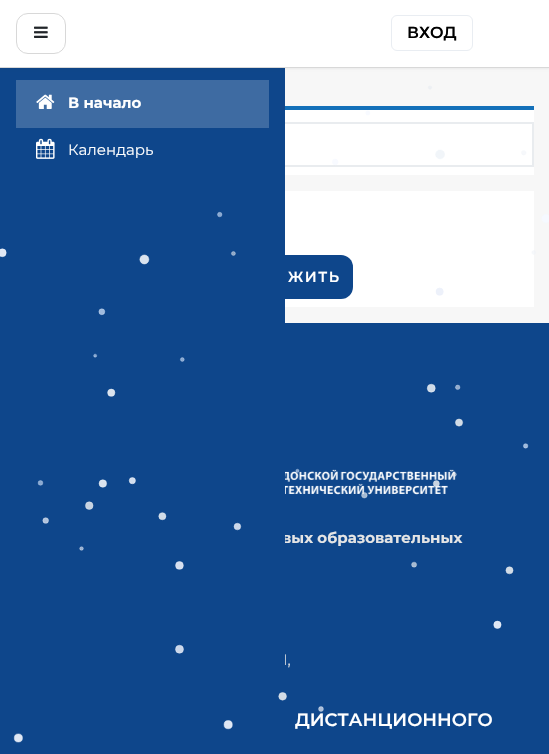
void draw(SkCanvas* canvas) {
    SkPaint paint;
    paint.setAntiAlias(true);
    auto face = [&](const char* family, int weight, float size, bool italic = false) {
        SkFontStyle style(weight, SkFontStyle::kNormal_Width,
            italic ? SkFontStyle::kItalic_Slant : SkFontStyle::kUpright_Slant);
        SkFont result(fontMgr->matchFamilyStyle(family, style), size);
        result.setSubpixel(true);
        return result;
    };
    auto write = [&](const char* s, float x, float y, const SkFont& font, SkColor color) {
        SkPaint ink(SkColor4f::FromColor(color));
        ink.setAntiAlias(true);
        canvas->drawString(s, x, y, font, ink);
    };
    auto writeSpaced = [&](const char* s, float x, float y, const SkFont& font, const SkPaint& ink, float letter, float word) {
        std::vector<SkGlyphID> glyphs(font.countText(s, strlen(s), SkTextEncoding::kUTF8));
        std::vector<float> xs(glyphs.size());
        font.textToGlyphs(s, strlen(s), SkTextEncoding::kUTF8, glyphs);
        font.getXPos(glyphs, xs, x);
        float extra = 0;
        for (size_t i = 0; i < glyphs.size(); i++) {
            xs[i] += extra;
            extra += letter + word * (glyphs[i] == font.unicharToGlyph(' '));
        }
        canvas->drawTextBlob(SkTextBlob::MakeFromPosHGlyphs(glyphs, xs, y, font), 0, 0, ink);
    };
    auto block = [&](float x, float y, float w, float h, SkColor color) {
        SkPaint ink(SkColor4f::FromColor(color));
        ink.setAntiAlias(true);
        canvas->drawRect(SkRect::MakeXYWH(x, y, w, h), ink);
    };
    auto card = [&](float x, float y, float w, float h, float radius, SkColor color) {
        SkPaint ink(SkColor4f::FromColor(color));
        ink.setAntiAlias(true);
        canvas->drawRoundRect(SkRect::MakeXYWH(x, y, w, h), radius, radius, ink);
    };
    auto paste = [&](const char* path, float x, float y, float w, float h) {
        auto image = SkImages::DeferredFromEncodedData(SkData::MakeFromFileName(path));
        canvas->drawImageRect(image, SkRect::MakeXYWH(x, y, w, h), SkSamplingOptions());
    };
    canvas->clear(SkColorSetRGB(247, 247, 247));
    block(285, 110, 249, 65, SK_ColorWHITE);
    paint.setStyle(SkPaint::kStroke_Style);
    paint.setStrokeWidth(2);
    paint.setColor(SkColorSetRGB(233, 236, 239));
    canvas->drawRect(SkRect::MakeXYWH(16, 123, 517, 43), paint);
    block(285, 191, 249, 116, SK_ColorWHITE);
    card(196, 255, 157, 44, 12, SkColorSetRGB(14, 70, 139));
    block(285, 323, 264, 431, SkColorSetRGB(14, 70, 139));
    auto kFont1 = face("Montserrat", 700, 15);
    write("вых образовательных", 282, 543, kFont1, SkColorSetRGB(229, 229, 229));
    auto kFont2 = face("Montserrat", 400, 15);
    write("1,", 282, 665, kFont2, SkColorSetRGB(229, 229, 229));
    block(0, 68, 285, 686, SkColorSetRGB(14, 70, 139));
    paint.setStyle(SkPaint::kFill_Style);
    paint.setColor(SkColorSetARGB(13, 0, 0, 0));
    paint.setMaskFilter(SkMaskFilter::MakeBlur(kNormal_SkBlurStyle, 1));
    canvas->drawRect(SkRect::MakeXYWH(0, 1, 549, 68), paint);
    paint.setMaskFilter(nullptr);
    block(0, 0, 549, 67, SK_ColorWHITE);
    block(0, 67, 549, 1, SkColorSetRGB(216, 216, 216));
    paint.setStyle(SkPaint::kStroke_Style);
    paint.setStrokeWidth(1);
    paint.setColor(SkColorSetRGB(216, 216, 216));
    canvas->drawRoundRect(SkRect::MakeXYWH(16.5f, 13.5f, 49, 40), 11.5f, 11.5f, paint);
    paste("pic1.png", 34, 26, 14, 12);
    paint.setColor(SkColorSetRGB(233, 237, 242));
    canvas->drawRoundRect(SkRect::MakeXYWH(391.5f, 15.5f, 81, 35), 5.5f, 5.5f, paint);
    auto kFont3 = face("Montserrat", 600, 16);
    write("ВХОД", 407, 38, kFont3, SK_ColorBLACK);
    block(16, 80, 253, 48, SkColorSetRGB(62, 107, 162));
    paste("pic2.png", 36, 94, 19, 15);
    write("В начало", 68, 108, kFont1, SK_ColorWHITE);
    paste("pic3.png", 36, 138, 19, 21);
    write("Календарь", 68, 155, kFont2, SK_ColorWHITE);
    block(285, 106, 249, 4, SkColorSetRGB(19, 112, 185));
    auto kFont4 = face("Montserrat", 600, 14.5f);
    paint.setStyle(SkPaint::kFill_Style);
    paint.setColor(SK_ColorWHITE);
    writeSpaced("ЖИТЬ", 288, 282, kFont4, paint, 1.5f, 0);
    paste("pic4.png", 285, 469, 171, 26);
    auto kFont5 = face("Montserrat", 600, 18);
    write("ДИСТАНЦИОННОГО", 295, 726, kFont5, SK_ColorWHITE);
    paste("pic5.png", 0, 85, 549, 658);
}
